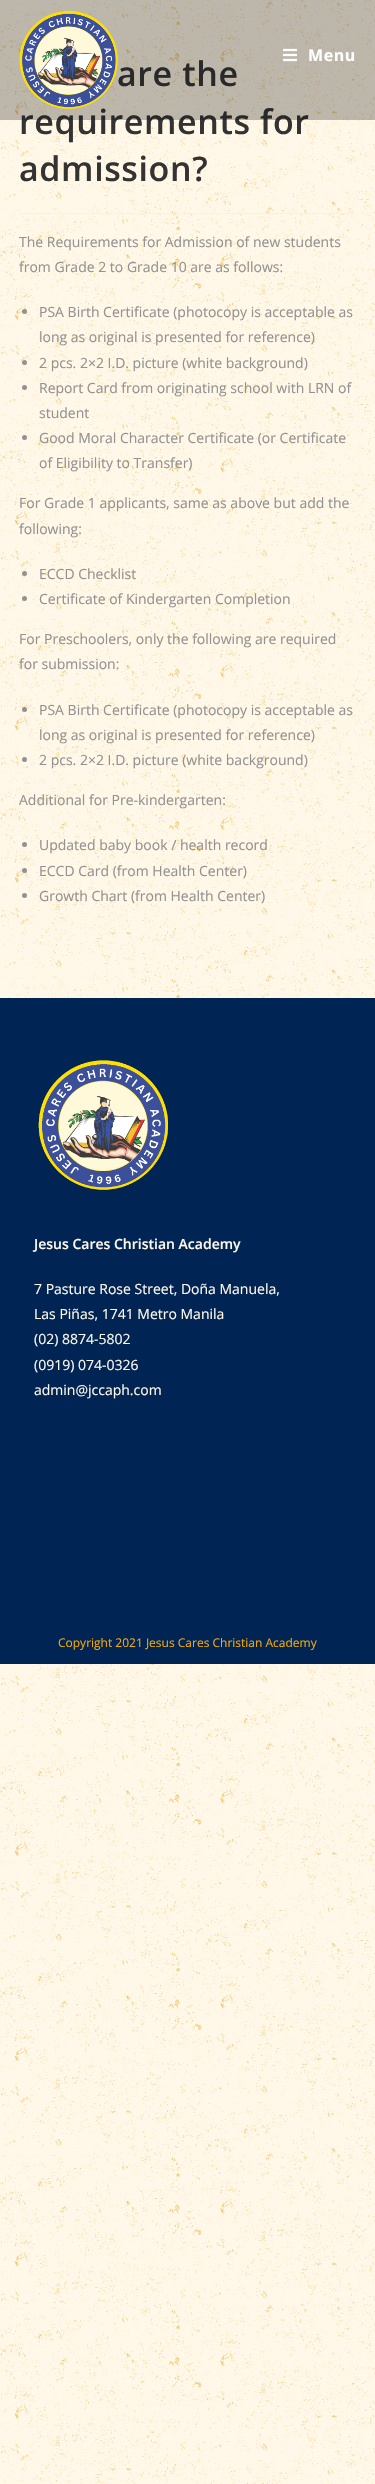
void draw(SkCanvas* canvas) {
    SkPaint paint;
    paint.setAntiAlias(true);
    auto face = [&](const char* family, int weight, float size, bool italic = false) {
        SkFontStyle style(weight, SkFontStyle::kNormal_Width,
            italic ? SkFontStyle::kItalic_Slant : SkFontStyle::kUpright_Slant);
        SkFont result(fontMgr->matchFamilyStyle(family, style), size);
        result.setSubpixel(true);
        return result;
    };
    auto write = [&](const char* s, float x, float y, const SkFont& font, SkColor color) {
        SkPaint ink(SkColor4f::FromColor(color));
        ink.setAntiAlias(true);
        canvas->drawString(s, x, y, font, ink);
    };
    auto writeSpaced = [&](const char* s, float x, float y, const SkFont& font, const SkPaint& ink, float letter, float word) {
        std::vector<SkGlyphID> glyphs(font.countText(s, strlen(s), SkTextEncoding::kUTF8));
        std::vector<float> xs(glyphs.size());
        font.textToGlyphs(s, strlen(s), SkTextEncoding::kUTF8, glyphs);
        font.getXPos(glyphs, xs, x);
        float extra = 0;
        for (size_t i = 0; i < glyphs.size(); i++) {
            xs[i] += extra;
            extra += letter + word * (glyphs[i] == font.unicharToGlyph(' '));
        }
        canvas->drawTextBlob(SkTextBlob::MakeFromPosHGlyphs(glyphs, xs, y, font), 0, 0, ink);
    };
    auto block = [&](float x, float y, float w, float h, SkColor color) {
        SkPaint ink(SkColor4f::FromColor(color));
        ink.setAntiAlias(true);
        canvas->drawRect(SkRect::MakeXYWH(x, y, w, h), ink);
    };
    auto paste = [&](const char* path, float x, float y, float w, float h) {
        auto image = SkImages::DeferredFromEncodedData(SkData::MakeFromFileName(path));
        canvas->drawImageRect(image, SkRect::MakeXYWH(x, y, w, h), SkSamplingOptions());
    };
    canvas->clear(SK_ColorWHITE);
    paste("pic1.png", 0, 0, 375, 2484);
    auto kFont1 = face("Open Sans", 600, 34);
    paint.setColor(SkColorSetRGB(51, 51, 51));
    writeSpaced("are the", 117, 86, kFont1, paint, 0.6f, 0);
    writeSpaced("requirements for", 19, 134, kFont1, paint, 0.6f, 0);
    block(0, 0, 375, 120, SkColorSetARGB(69, 10, 10, 10));
    paste("pic2.png", 19, 10, 99, 99);
    paste("pic3.png", 283, 48, 14, 14);
    auto kFont2 = face("Open Sans", 700, 16);
    paint.setColor(SK_ColorWHITE);
    writeSpaced("Menu", 308, 61, kFont2, paint, 0.6f, 0);
    block(19, 213, 337, 1, SkColorSetRGB(241, 241, 241));
    paint.setColor(SkColorSetRGB(51, 51, 51));
    writeSpaced("admission?", 19, 181, kFont1, paint, 0.6f, 0);
    auto kFont3 = face("Open Sans", 400, 14);
    write("The Requirements for Admission of new students", 19, 247, kFont3, SkColorSetRGB(146, 146, 146));
    write("from Grade 2 to Grade 10 are as follows:", 19, 272, kFont3, SkColorSetRGB(146, 146, 146));
    paint.setColor(SkColorSetRGB(146, 146, 146));
    canvas->drawCircle(24.5f, 311.5f, 2.5f, paint);
    write("PSA Birth Certificate (photocopy is acceptable as", 39, 317, kFont3, SkColorSetRGB(146, 146, 146));
    write("long as original is presented for reference)", 39, 342, kFont3, SkColorSetRGB(146, 146, 146));
    canvas->drawCircle(24.5f, 362.5f, 2.5f, paint);
    write("2 pcs. 2×2 I.D. picture (white background)", 39, 368, kFont3, SkColorSetRGB(146, 146, 146));
    canvas->drawCircle(24.5f, 387.5f, 2.5f, paint);
    write("Report Card from originating school with LRN of", 39, 393, kFont3, SkColorSetRGB(146, 146, 146));
    write("student", 39, 418, kFont3, SkColorSetRGB(146, 146, 146));
    canvas->drawCircle(24.5f, 437.5f, 2.5f, paint);
    write("Good Moral Character Certificate (or Certificate", 39, 443, kFont3, SkColorSetRGB(146, 146, 146));
    write("of Eligibility to Transfer)", 39, 468, kFont3, SkColorSetRGB(146, 146, 146));
    write("For Grade 1 applicants, same as above but add the", 19, 508, kFont3, SkColorSetRGB(146, 146, 146));
    write("following:", 19, 534, kFont3, SkColorSetRGB(146, 146, 146));
    canvas->drawCircle(24.5f, 573.5f, 2.5f, paint);
    write("ECCD Checklist", 39, 579, kFont3, SkColorSetRGB(146, 146, 146));
    canvas->drawCircle(24.5f, 598.5f, 2.5f, paint);
    write("Certificate of Kindergarten Completion", 39, 604, kFont3, SkColorSetRGB(146, 146, 146));
    write("For Preschoolers, only the following are required", 19, 644, kFont3, SkColorSetRGB(146, 146, 146));
    write("for submission:", 19, 669, kFont3, SkColorSetRGB(146, 146, 146));
    canvas->drawCircle(24.5f, 709.5f, 2.5f, paint);
    write("PSA Birth Certificate (photocopy is acceptable as", 39, 715, kFont3, SkColorSetRGB(146, 146, 146));
    write("long as original is presented for reference)", 39, 740, kFont3, SkColorSetRGB(146, 146, 146));
    canvas->drawCircle(24.5f, 759.5f, 2.5f, paint);
    write("2 pcs. 2×2 I.D. picture (white background)", 39, 765, kFont3, SkColorSetRGB(146, 146, 146));
    write("Additional for Pre-kindergarten:", 19, 805, kFont3, SkColorSetRGB(146, 146, 146));
    canvas->drawCircle(24.5f, 844.5f, 2.5f, paint);
    write("Updated baby book / health record", 39, 850, kFont3, SkColorSetRGB(146, 146, 146));
    canvas->drawCircle(24.5f, 870.5f, 2.5f, paint);
    write("ECCD Card (from Health Center)", 39, 876, kFont3, SkColorSetRGB(146, 146, 146));
    canvas->drawCircle(24.5f, 895.5f, 2.5f, paint);
    write("Growth Chart (from Health Center)", 39, 901, kFont3, SkColorSetRGB(146, 146, 146));
    block(0, 998, 375, 666, SkColorSetRGB(0, 36, 84));
    paste("pic4.png", 38, 1060, 130, 130);
    auto kFont4 = face("Open Sans", 600, 14);
    write("Jesus Cares Christian Academy", 34, 1249, kFont4, SkColorSetRGB(255, 248, 233));
    write("7 Pasture Rose Street, Doña Manuela,", 34, 1294, kFont3, SkColorSetRGB(255, 248, 233));
    write("Las Piñas, 1741 Metro Manila", 34, 1319, kFont3, SkColorSetRGB(255, 248, 233));
    write("(02) 8874-5802", 34, 1344, kFont3, SkColorSetRGB(255, 248, 233));
    write("(0919) 074-0326", 34, 1370, kFont3, SkColorSetRGB(255, 248, 233));
    write("admin@jccaph.com", 34, 1395, kFont3, SkColorSetRGB(255, 248, 233));
    auto kFont5 = face("Open Sans", 400, 12);
    write("Copyright 2021 Jesus Cares Christian Academy", 58, 1647, kFont5, SkColorSetRGB(247, 169, 1));
}
